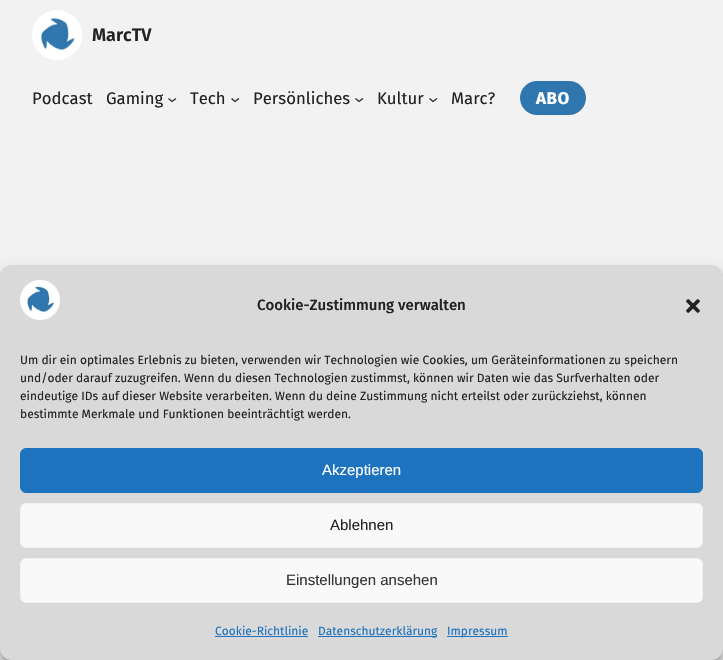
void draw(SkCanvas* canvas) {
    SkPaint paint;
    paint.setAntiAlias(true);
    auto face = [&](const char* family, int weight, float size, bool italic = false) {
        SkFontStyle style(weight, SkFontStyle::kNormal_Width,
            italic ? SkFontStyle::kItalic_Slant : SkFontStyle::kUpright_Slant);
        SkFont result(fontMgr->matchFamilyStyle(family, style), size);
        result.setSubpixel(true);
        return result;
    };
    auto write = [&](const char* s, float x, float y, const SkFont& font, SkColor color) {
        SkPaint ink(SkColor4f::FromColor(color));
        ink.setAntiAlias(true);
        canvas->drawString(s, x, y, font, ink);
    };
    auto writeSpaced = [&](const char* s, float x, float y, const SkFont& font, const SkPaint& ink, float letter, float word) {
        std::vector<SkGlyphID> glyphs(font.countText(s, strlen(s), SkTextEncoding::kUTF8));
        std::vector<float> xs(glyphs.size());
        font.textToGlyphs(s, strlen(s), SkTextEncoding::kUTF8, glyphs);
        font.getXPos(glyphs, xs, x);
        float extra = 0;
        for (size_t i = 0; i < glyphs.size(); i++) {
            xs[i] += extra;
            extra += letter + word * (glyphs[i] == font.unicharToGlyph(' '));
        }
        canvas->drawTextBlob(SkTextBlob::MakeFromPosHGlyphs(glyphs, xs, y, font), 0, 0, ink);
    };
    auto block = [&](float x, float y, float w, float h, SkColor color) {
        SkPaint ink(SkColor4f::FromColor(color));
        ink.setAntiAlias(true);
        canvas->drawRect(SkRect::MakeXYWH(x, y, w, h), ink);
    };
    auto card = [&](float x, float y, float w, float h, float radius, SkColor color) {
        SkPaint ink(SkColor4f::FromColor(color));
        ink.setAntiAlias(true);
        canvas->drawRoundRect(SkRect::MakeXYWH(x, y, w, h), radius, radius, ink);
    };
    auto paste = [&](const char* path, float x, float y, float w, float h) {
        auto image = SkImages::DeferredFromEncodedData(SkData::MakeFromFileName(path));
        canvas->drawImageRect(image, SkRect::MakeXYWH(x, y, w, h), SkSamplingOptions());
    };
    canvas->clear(SkColorSetRGB(242, 242, 242));
    paste("pic1.png", 32, 10, 50, 50);
    auto kFont1 = face("Fira Sans", 600, 18);
    write("MarcTV", 92, 41, kFont1, SkColorSetRGB(34, 34, 34));
    auto kFont2 = face("Fira Sans", 400, 16.75f);
    write("Podcast", 32, 104, kFont2, SkColorSetRGB(34, 34, 34));
    write("Gaming", 106, 104, kFont2, SkColorSetRGB(34, 34, 34));
    paint.setStyle(SkPaint::kStroke_Style);
    paint.setStrokeWidth(1.2f);
    paint.setColor(SkColorSetRGB(34, 34, 34));
    canvas->drawPath(SkPathBuilder().moveTo(168.5f, 98.5f).lineTo(172, 101.5f).lineTo(176, 98.5f).detach(), paint);
    write("Tech", 190, 104, kFont2, SkColorSetRGB(34, 34, 34));
    canvas->drawPath(SkPathBuilder().moveTo(231.5f, 98.5f).lineTo(235, 101.5f).lineTo(239, 98.5f).detach(), paint);
    write("Persönliches", 253, 104, kFont2, SkColorSetRGB(34, 34, 34));
    canvas->drawPath(SkPathBuilder().moveTo(355.5f, 98.5f).lineTo(359, 101.5f).lineTo(363, 98.5f).detach(), paint);
    write("Kultur", 377, 104, kFont2, SkColorSetRGB(34, 34, 34));
    canvas->drawPath(SkPathBuilder().moveTo(429.5f, 98.5f).lineTo(433, 101.5f).lineTo(437, 98.5f).detach(), paint);
    write("Marc?", 451, 104, kFont2, SkColorSetRGB(34, 34, 34));
    card(520, 81, 66, 34, 17, SkColorSetRGB(48, 118, 174));
    auto kFont3 = face("Fira Sans", 700, 17);
    paint.setStyle(SkPaint::kFill_Style);
    paint.setColor(SK_ColorWHITE);
    writeSpaced("ABO", 536, 104, kFont3, paint, 0.5f, 0);
    paint.setColor(SkColorSetARGB(59, 0, 0, 0));
    paint.setMaskFilter(SkMaskFilter::MakeBlur(kNormal_SkBlurStyle, 3));
    canvas->drawRoundRect(SkRect::MakeXYWH(0, 271, 723, 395), 12, 12, paint);
    paint.setMaskFilter(nullptr);
    paint.setColor(SkColorSetARGB(48, 0, 0, 0));
    paint.setMaskFilter(SkMaskFilter::MakeBlur(kNormal_SkBlurStyle, 10));
    canvas->drawRoundRect(SkRect::MakeXYWH(0, 275, 723, 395), 12, 12, paint);
    paint.setMaskFilter(nullptr);
    card(0, 265, 723, 395, 12, SkColorSetRGB(217, 217, 217));
    paste("pic2.png", 20, 280, 40, 40);
    auto kFont4 = face("Fira Sans", 500, 15);
    write("Cookie-Zustimmung verwalten", 257, 310, kFont4, SkColorSetRGB(34, 34, 34));
    paste("pic3.png", 686, 299, 14, 14);
    auto kFont5 = face("Fira Sans", 400, 12);
    write("Um dir ein optimales Erlebnis zu bieten, verwenden wir Technologien wie Cookies, um Geräteinformationen zu speichern", 20, 364, kFont5, SkColorSetRGB(34, 34, 34));
    write("und/oder darauf zuzugreifen. Wenn du diesen Technologien zustimmst, können wir Daten wie das Surfverhalten oder", 20, 382, kFont5, SkColorSetRGB(34, 34, 34));
    write("eindeutige IDs auf dieser Website verarbeiten. Wenn du deine Zustimmung nicht erteilst oder zurückziehst, können", 20, 400, kFont5, SkColorSetRGB(34, 34, 34));
    write("bestimmte Merkmale und Funktionen beeinträchtigt werden.", 20, 418, kFont5, SkColorSetRGB(34, 34, 34));
    paint.setColor(SkColorSetRGB(30, 115, 190));
    canvas->drawRoundRect(SkRect::MakeXYWH(20.5f, 448.5f, 682, 44), 5.5f, 5.5f, paint);
    paint.setStyle(SkPaint::kStroke_Style);
    paint.setStrokeWidth(1);
    canvas->drawRoundRect(SkRect::MakeXYWH(20.5f, 448.5f, 682, 44), 5.5f, 5.5f, paint);
    auto kFont6 = face("Liberation Sans", 400, 15);
    write("Akzeptieren", 322, 475, kFont6, SK_ColorWHITE);
    paint.setStyle(SkPaint::kFill_Style);
    paint.setColor(SkColorSetRGB(249, 249, 249));
    canvas->drawRoundRect(SkRect::MakeXYWH(20.5f, 503.5f, 682, 44), 5.5f, 5.5f, paint);
    paint.setStyle(SkPaint::kStroke_Style);
    paint.setColor(SkColorSetRGB(242, 242, 242));
    canvas->drawRoundRect(SkRect::MakeXYWH(20.5f, 503.5f, 682, 44), 5.5f, 5.5f, paint);
    write("Ablehnen", 330, 530, kFont6, SkColorSetRGB(34, 34, 34));
    paint.setStyle(SkPaint::kFill_Style);
    paint.setColor(SkColorSetRGB(249, 249, 249));
    canvas->drawRoundRect(SkRect::MakeXYWH(20.5f, 558.5f, 682, 44), 5.5f, 5.5f, paint);
    paint.setStyle(SkPaint::kStroke_Style);
    paint.setColor(SkColorSetRGB(242, 242, 242));
    canvas->drawRoundRect(SkRect::MakeXYWH(20.5f, 558.5f, 682, 44), 5.5f, 5.5f, paint);
    write("Einstellungen ansehen", 286, 585, kFont6, SkColorSetRGB(51, 51, 51));
    write("Cookie-Richtlinie", 215, 635, kFont5, SkColorSetRGB(30, 115, 190));
    block(215, 636, 93, 1, SkColorSetRGB(30, 115, 190));
    block(318, 636, 119, 1, SkColorSetRGB(30, 115, 190));
    write("Datenschutzerklärung", 318, 635, kFont5, SkColorSetRGB(30, 115, 190));
    block(447, 636, 61, 1, SkColorSetRGB(30, 115, 190));
    write("Impressum", 447, 635, kFont5, SkColorSetRGB(30, 115, 190));
}
